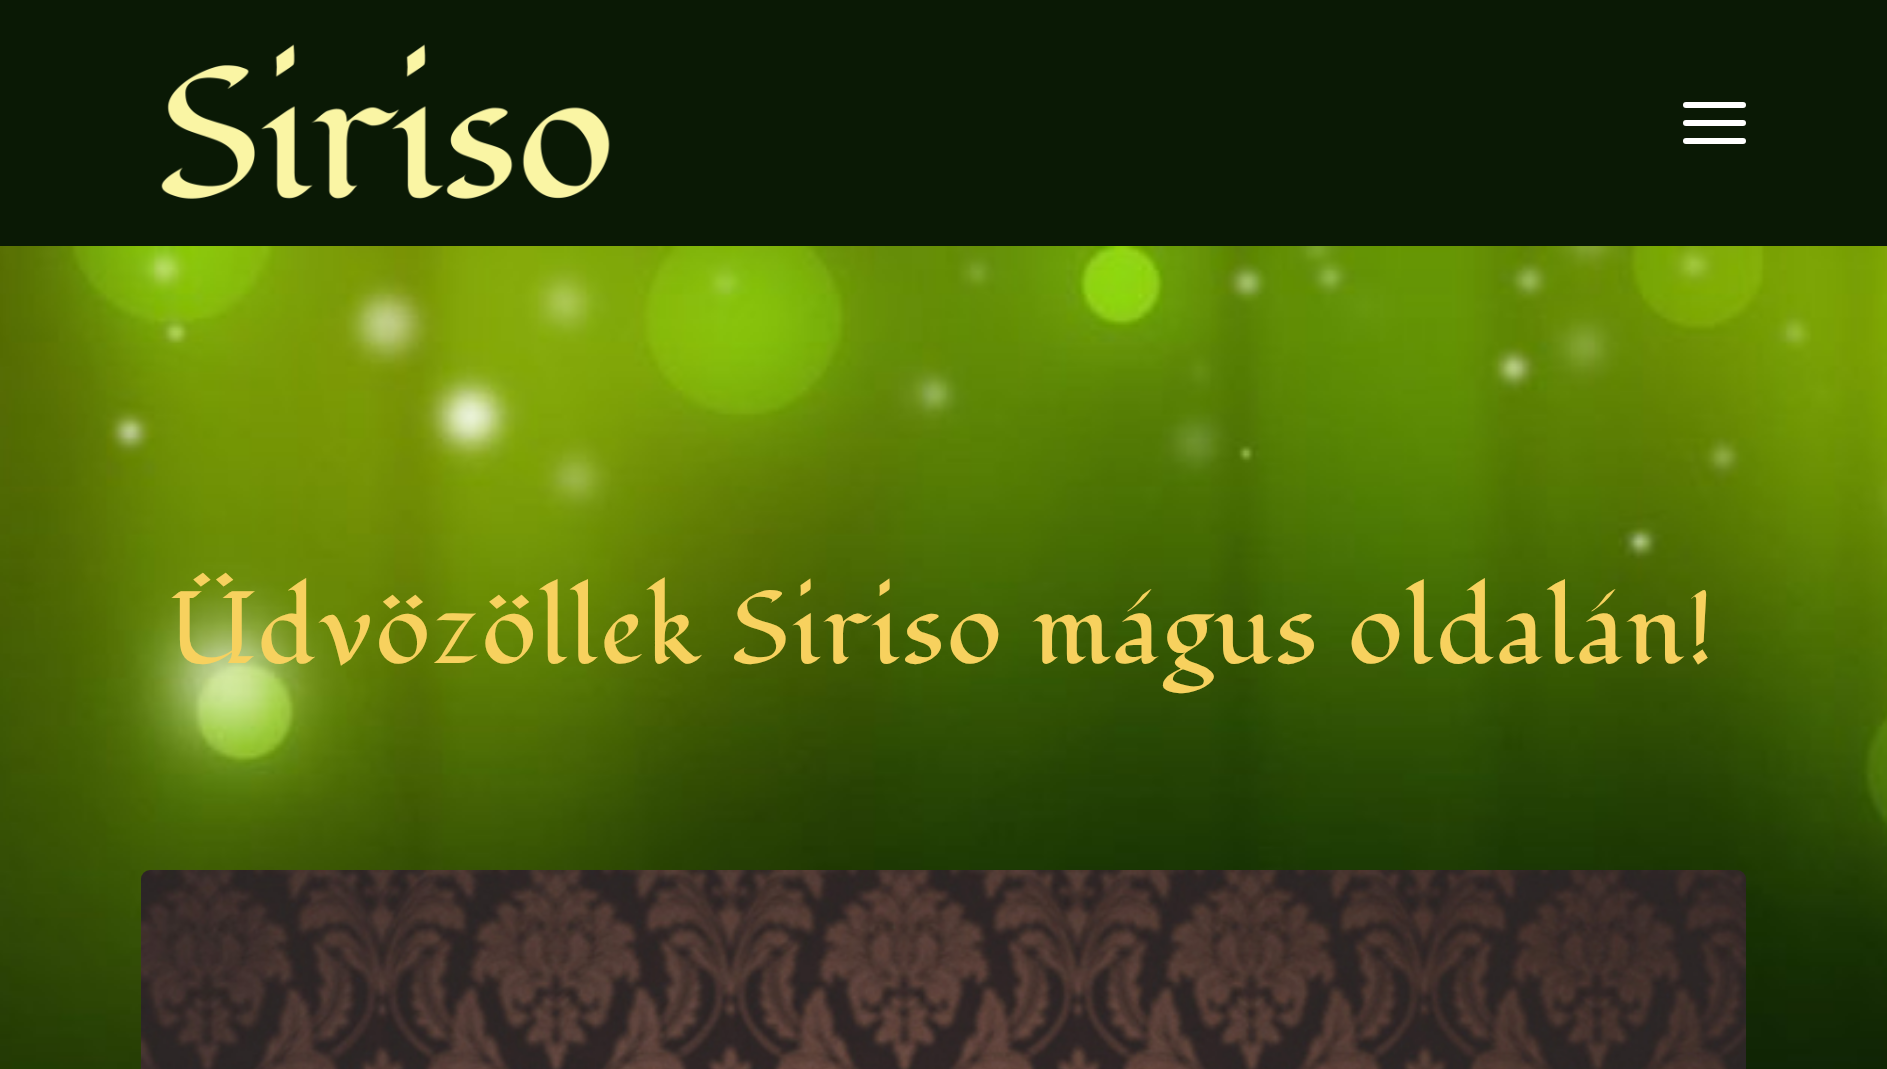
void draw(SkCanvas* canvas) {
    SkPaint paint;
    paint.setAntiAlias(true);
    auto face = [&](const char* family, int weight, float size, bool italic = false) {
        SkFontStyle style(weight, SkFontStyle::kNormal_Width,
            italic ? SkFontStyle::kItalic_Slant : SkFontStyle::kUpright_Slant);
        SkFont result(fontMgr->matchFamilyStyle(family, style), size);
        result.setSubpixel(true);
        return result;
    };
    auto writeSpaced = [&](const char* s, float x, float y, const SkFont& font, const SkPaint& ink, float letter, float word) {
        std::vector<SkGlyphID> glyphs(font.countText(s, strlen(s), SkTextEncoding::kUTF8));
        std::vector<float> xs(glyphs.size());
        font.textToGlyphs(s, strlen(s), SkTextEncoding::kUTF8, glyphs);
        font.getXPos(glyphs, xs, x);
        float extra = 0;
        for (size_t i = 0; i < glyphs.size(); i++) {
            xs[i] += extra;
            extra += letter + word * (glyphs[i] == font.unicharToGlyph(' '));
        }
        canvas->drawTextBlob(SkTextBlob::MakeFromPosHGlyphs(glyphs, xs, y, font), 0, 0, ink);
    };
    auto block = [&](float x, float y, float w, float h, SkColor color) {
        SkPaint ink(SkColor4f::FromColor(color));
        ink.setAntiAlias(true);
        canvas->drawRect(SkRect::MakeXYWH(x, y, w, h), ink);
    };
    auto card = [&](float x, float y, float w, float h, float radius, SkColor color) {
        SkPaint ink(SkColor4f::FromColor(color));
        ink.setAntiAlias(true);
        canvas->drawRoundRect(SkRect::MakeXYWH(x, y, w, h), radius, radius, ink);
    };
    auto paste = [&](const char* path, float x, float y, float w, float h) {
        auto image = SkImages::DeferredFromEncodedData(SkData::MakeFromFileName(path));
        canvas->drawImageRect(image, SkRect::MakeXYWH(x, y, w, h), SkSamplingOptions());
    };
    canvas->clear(SK_ColorWHITE);
    block(0, 0, 1887, 246, SkColorSetRGB(10, 25, 5));
    paste("pic1.png", 161, 44, 449, 155);
    card(1683, 120, 63, 6, 3, SK_ColorWHITE);
    card(1683, 102, 63, 6, 3, SK_ColorWHITE);
    card(1683, 138, 63, 6, 3, SK_ColorWHITE);
    paste("pic2.png", 0, 246, 1887, 823);
    auto kFont1 = face("Fondamento", 400, 102);
    paint.setColor(SkColorSetRGB(247, 209, 94));
    writeSpaced("Üdvözöllek Siriso mágus oldalán!", 169, 663, kFont1, paint, 3, 0);
    paste("pic3.png", 141, 870, 1605, 199);
}
